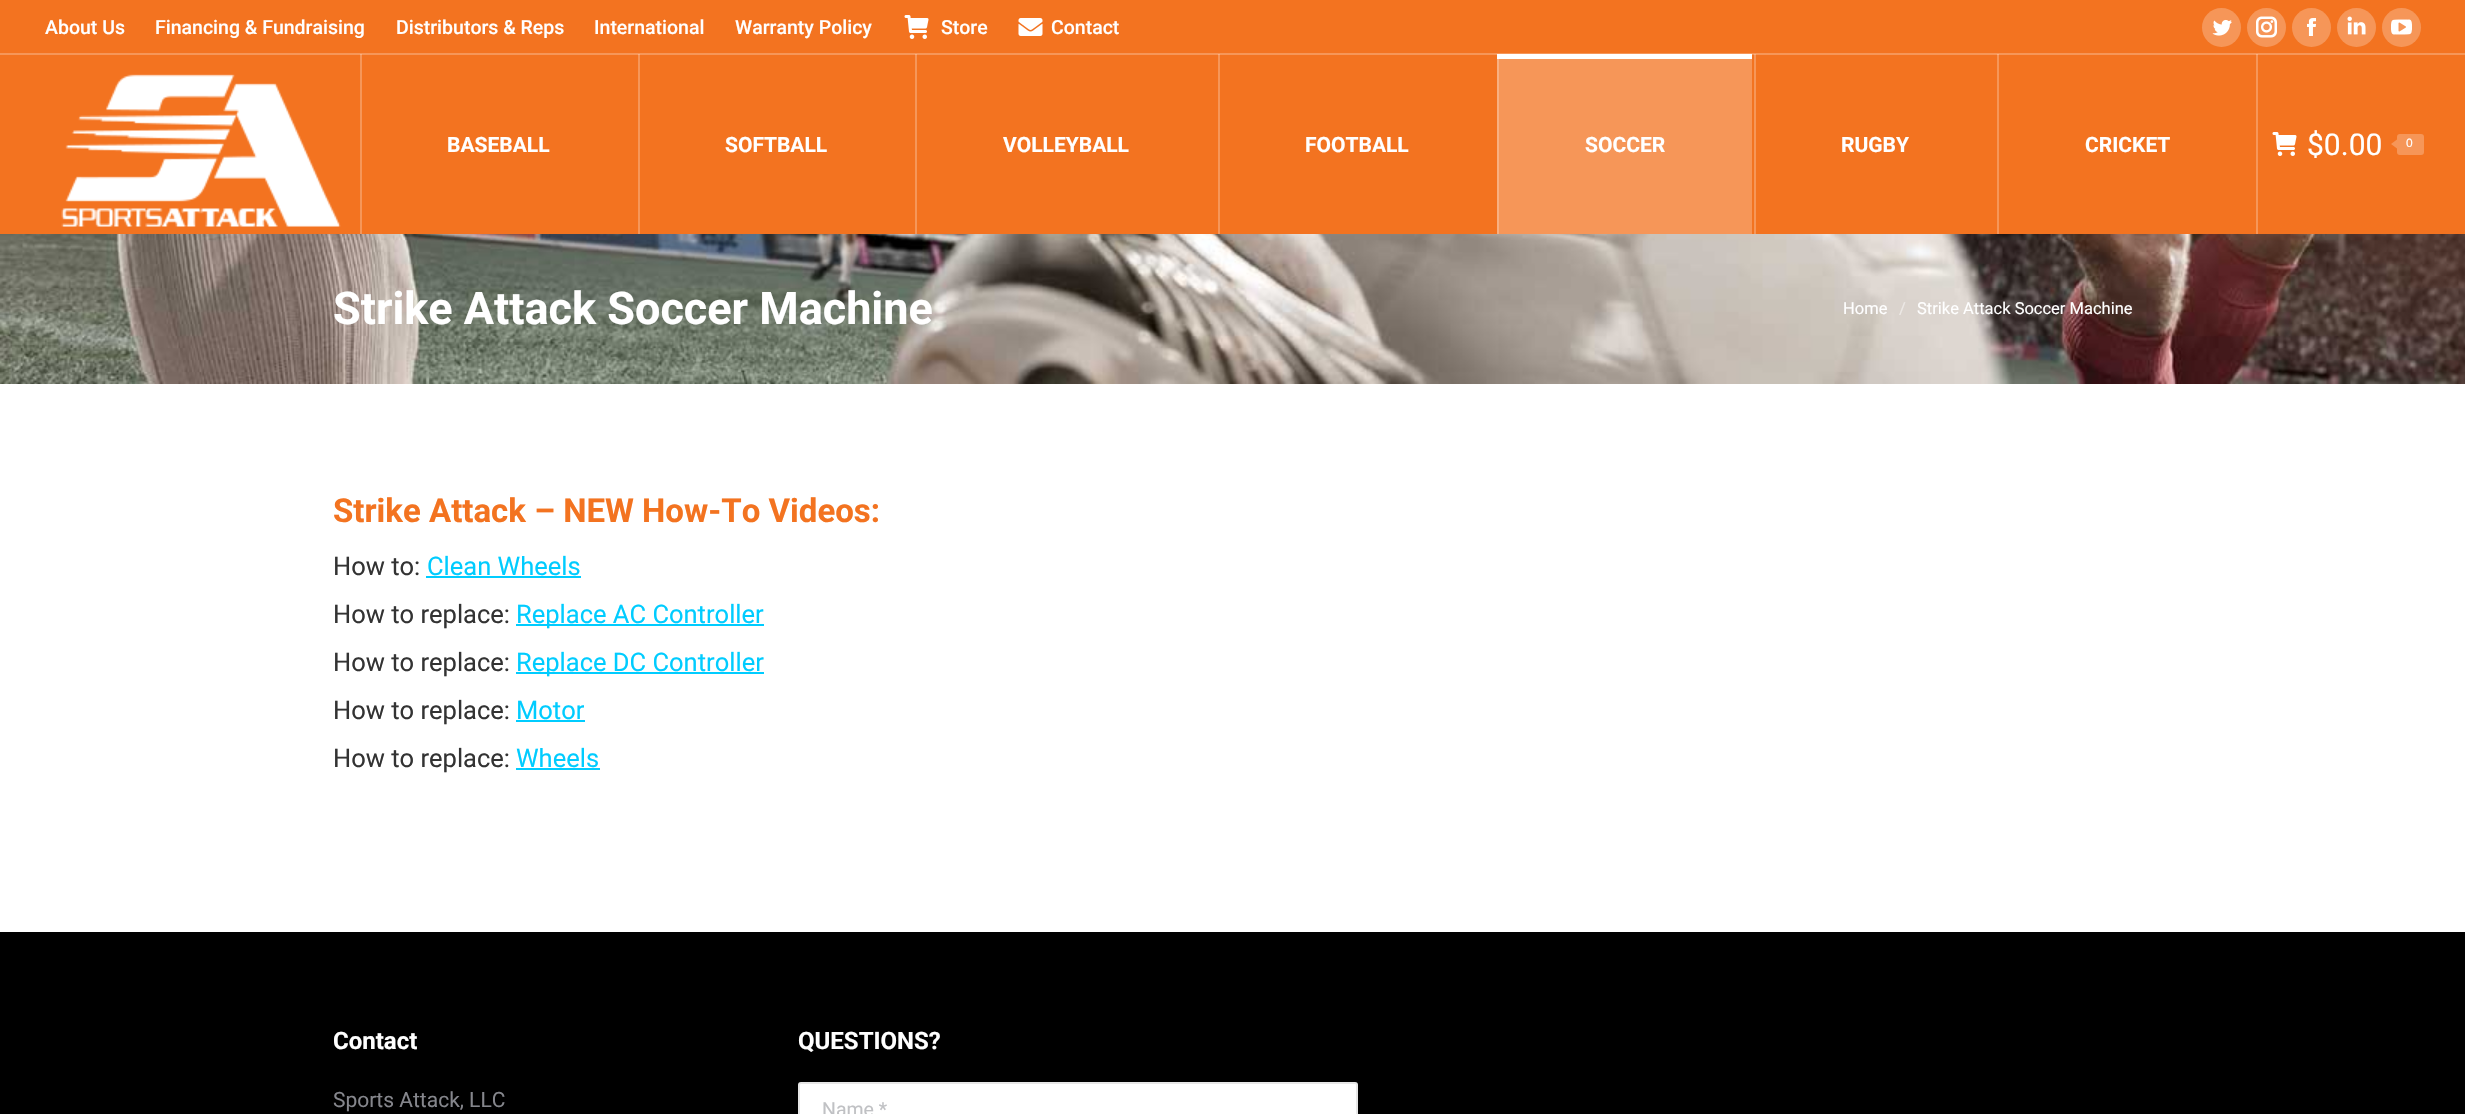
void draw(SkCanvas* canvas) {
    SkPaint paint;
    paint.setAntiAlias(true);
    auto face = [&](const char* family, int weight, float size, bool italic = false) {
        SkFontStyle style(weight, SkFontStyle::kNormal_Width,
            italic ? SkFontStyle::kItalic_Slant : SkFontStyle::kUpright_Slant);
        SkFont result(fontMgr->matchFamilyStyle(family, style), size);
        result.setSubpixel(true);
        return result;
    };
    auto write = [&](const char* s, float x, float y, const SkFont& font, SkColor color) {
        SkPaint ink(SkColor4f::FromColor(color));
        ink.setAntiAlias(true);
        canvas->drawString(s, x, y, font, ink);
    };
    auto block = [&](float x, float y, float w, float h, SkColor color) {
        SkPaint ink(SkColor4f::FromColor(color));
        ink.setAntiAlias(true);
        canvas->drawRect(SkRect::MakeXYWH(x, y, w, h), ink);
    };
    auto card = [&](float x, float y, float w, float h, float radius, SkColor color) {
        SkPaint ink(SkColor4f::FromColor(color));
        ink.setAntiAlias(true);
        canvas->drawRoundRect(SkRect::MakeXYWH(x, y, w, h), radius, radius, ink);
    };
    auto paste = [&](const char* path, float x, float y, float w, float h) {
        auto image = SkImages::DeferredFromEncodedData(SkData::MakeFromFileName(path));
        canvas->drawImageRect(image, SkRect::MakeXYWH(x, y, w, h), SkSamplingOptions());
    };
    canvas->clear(SK_ColorWHITE);
    block(0, 0, 2465, 234, SkColorSetRGB(243, 115, 32));
    auto kFont1 = face("Roboto", 500, 19.5f);
    write("About Us", 45, 34, kFont1, SK_ColorWHITE);
    write("Financing & Fundraising", 155, 34, kFont1, SK_ColorWHITE);
    write("Distributors & Reps", 396, 34, kFont1, SK_ColorWHITE);
    write("International", 594, 34, kFont1, SK_ColorWHITE);
    write("Warranty Policy", 735, 34, kFont1, SK_ColorWHITE);
    paste("pic1.png", 904, 15, 25, 24);
    write("Store", 941, 34, kFont1, SK_ColorWHITE);
    paste("pic2.png", 1018, 18, 25, 18);
    write("Contact", 1051, 34, kFont1, SK_ColorWHITE);
    paint.setColor(SkColorSetRGB(246, 150, 88));
    canvas->drawCircle(2221.5f, 27.5f, 19.5f, paint);
    paste("pic3.png", 2212, 19, 20, 17);
    canvas->drawCircle(2266.5f, 27.5f, 19.5f, paint);
    paste("pic4.png", 2256, 16, 21, 22);
    canvas->drawCircle(2311.5f, 27.5f, 19.5f, paint);
    paste("pic5.png", 2307, 18, 9, 18);
    canvas->drawCircle(2356.5f, 27.5f, 19.5f, paint);
    paste("pic6.png", 2347, 16, 19, 19);
    canvas->drawCircle(2401.5f, 27.5f, 19.5f, paint);
    paste("pic7.png", 2391, 19, 21, 16);
    block(0, 53, 2465, 2, SkColorSetRGB(246, 150, 88));
    paste("pic8.png", 61, 74, 280, 153);
    block(360, 54, 2, 180, SkColorSetARGB(64, 255, 255, 255));
    auto kFont2 = face("Roboto", 700, 21);
    write("BASEBALL", 447, 152, kFont2, SK_ColorWHITE);
    block(638, 54, 2, 180, SkColorSetARGB(64, 255, 255, 255));
    write("SOFTBALL", 725, 152, kFont2, SK_ColorWHITE);
    block(915, 54, 2, 180, SkColorSetARGB(64, 255, 255, 255));
    write("VOLLEYBALL", 1003, 152, kFont2, SK_ColorWHITE);
    block(1218, 54, 2, 180, SkColorSetARGB(64, 255, 255, 255));
    write("FOOTBALL", 1305, 152, kFont2, SK_ColorWHITE);
    block(1497, 54, 2, 180, SkColorSetARGB(64, 255, 255, 255));
    block(1497, 59, 255, 175, SkColorSetARGB(64, 255, 255, 255));
    block(1497, 54, 255, 5, SK_ColorWHITE);
    write("SOCCER", 1585, 152, kFont2, SK_ColorWHITE);
    block(1754, 54, 2, 180, SkColorSetARGB(64, 255, 255, 255));
    write("RUGBY", 1841, 152, kFont2, SK_ColorWHITE);
    block(1997, 54, 2, 180, SkColorSetARGB(64, 255, 255, 255));
    write("CRICKET", 2085, 152, kFont2, SK_ColorWHITE);
    block(2256, 54, 2, 180, SkColorSetARGB(64, 255, 255, 255));
    paste("pic1.png", 2272, 132, 25, 24);
    auto kFont3 = face("Roboto", 400, 30);
    write("$0.00", 2307, 155, kFont3, SK_ColorWHITE);
    card(2397, 134, 27, 21, 3, SkColorSetRGB(246, 150, 88));
    canvas->drawPath(SkPathBuilder().moveTo(2397, 139.5f).lineTo(2397, 148.5f).lineTo(2391, 144).close().detach(), paint);
    auto kFont4 = face("Liberation Sans", 400, 12);
    write("0", 2406, 147, kFont4, SK_ColorWHITE);
    paste("pic9.png", 0, 234, 2465, 150);
    auto kFont5 = face("Roboto", 700, 45);
    write("Strike Attack Soccer Machine", 333, 324, kFont5, SK_ColorWHITE);
    auto kFont6 = face("Roboto", 400, 16.5f);
    write("Home", 1843, 314, kFont6, SK_ColorWHITE);
    write("/", 1899, 314, kFont6, SkColorSetRGB(237, 233, 230));
    write("Strike Attack Soccer Machine", 1917, 314, kFont6, SK_ColorWHITE);
    auto kFont7 = face("Roboto", 700, 33);
    write("Strike Attack – NEW How-To Videos:", 333, 522, kFont7, SkColorSetRGB(243, 115, 32));
    auto kFont8 = face("Roboto", 400, 25.5f);
    write("How to:", 333, 575, kFont8, SkColorSetRGB(51, 51, 51));
    write("Clean Wheels", 427, 575, kFont8, SkColorSetRGB(0, 204, 255));
    block(426, 576, 155, 2, SkColorSetRGB(0, 204, 255));
    write("How to replace:", 333, 623, kFont8, SkColorSetRGB(51, 51, 51));
    block(516, 624, 248, 2, SkColorSetRGB(0, 204, 255));
    write("Replace AC Controller", 516, 623, kFont8, SkColorSetRGB(0, 204, 255));
    write("How to replace:", 333, 671, kFont8, SkColorSetRGB(51, 51, 51));
    block(516, 672, 248, 2, SkColorSetRGB(0, 204, 255));
    write("Replace DC Controller", 516, 671, kFont8, SkColorSetRGB(0, 204, 255));
    write("How to replace:", 333, 719, kFont8, SkColorSetRGB(51, 51, 51));
    write("Motor", 516, 719, kFont8, SkColorSetRGB(0, 204, 255));
    block(516, 720, 69, 2, SkColorSetRGB(0, 204, 255));
    write("How to replace:", 333, 767, kFont8, SkColorSetRGB(51, 51, 51));
    write("Wheels", 516, 767, kFont8, SkColorSetRGB(0, 204, 255));
    block(516, 768, 84, 2, SkColorSetRGB(0, 204, 255));
    block(0, 932, 2465, 182, SK_ColorBLACK);
    auto kFont9 = face("Roboto", 700, 24);
    write("Contact", 333, 1049, kFont9, SK_ColorWHITE);
    auto kFont10 = face("Roboto", 400, 21);
    write("Sports Attack, LLC", 333, 1107, kFont10, SkColorSetRGB(133, 134, 140));
    write("QUESTIONS?", 798, 1049, kFont9, SK_ColorWHITE);
    card(798, 1082, 560, 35, 3, SK_ColorWHITE);
    paint.setStyle(SkPaint::kStroke_Style);
    paint.setStrokeWidth(2);
    paint.setColor(SkColorSetARGB(31, 51, 51, 51));
    canvas->drawRoundRect(SkRect::MakeXYWH(799, 1083, 558, 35), 2, 2, paint);
    auto kFont11 = face("Roboto", 400, 19.5f);
    write("Name *", 822, 1116, kFont11, SkColorSetRGB(192, 193, 196));
}
